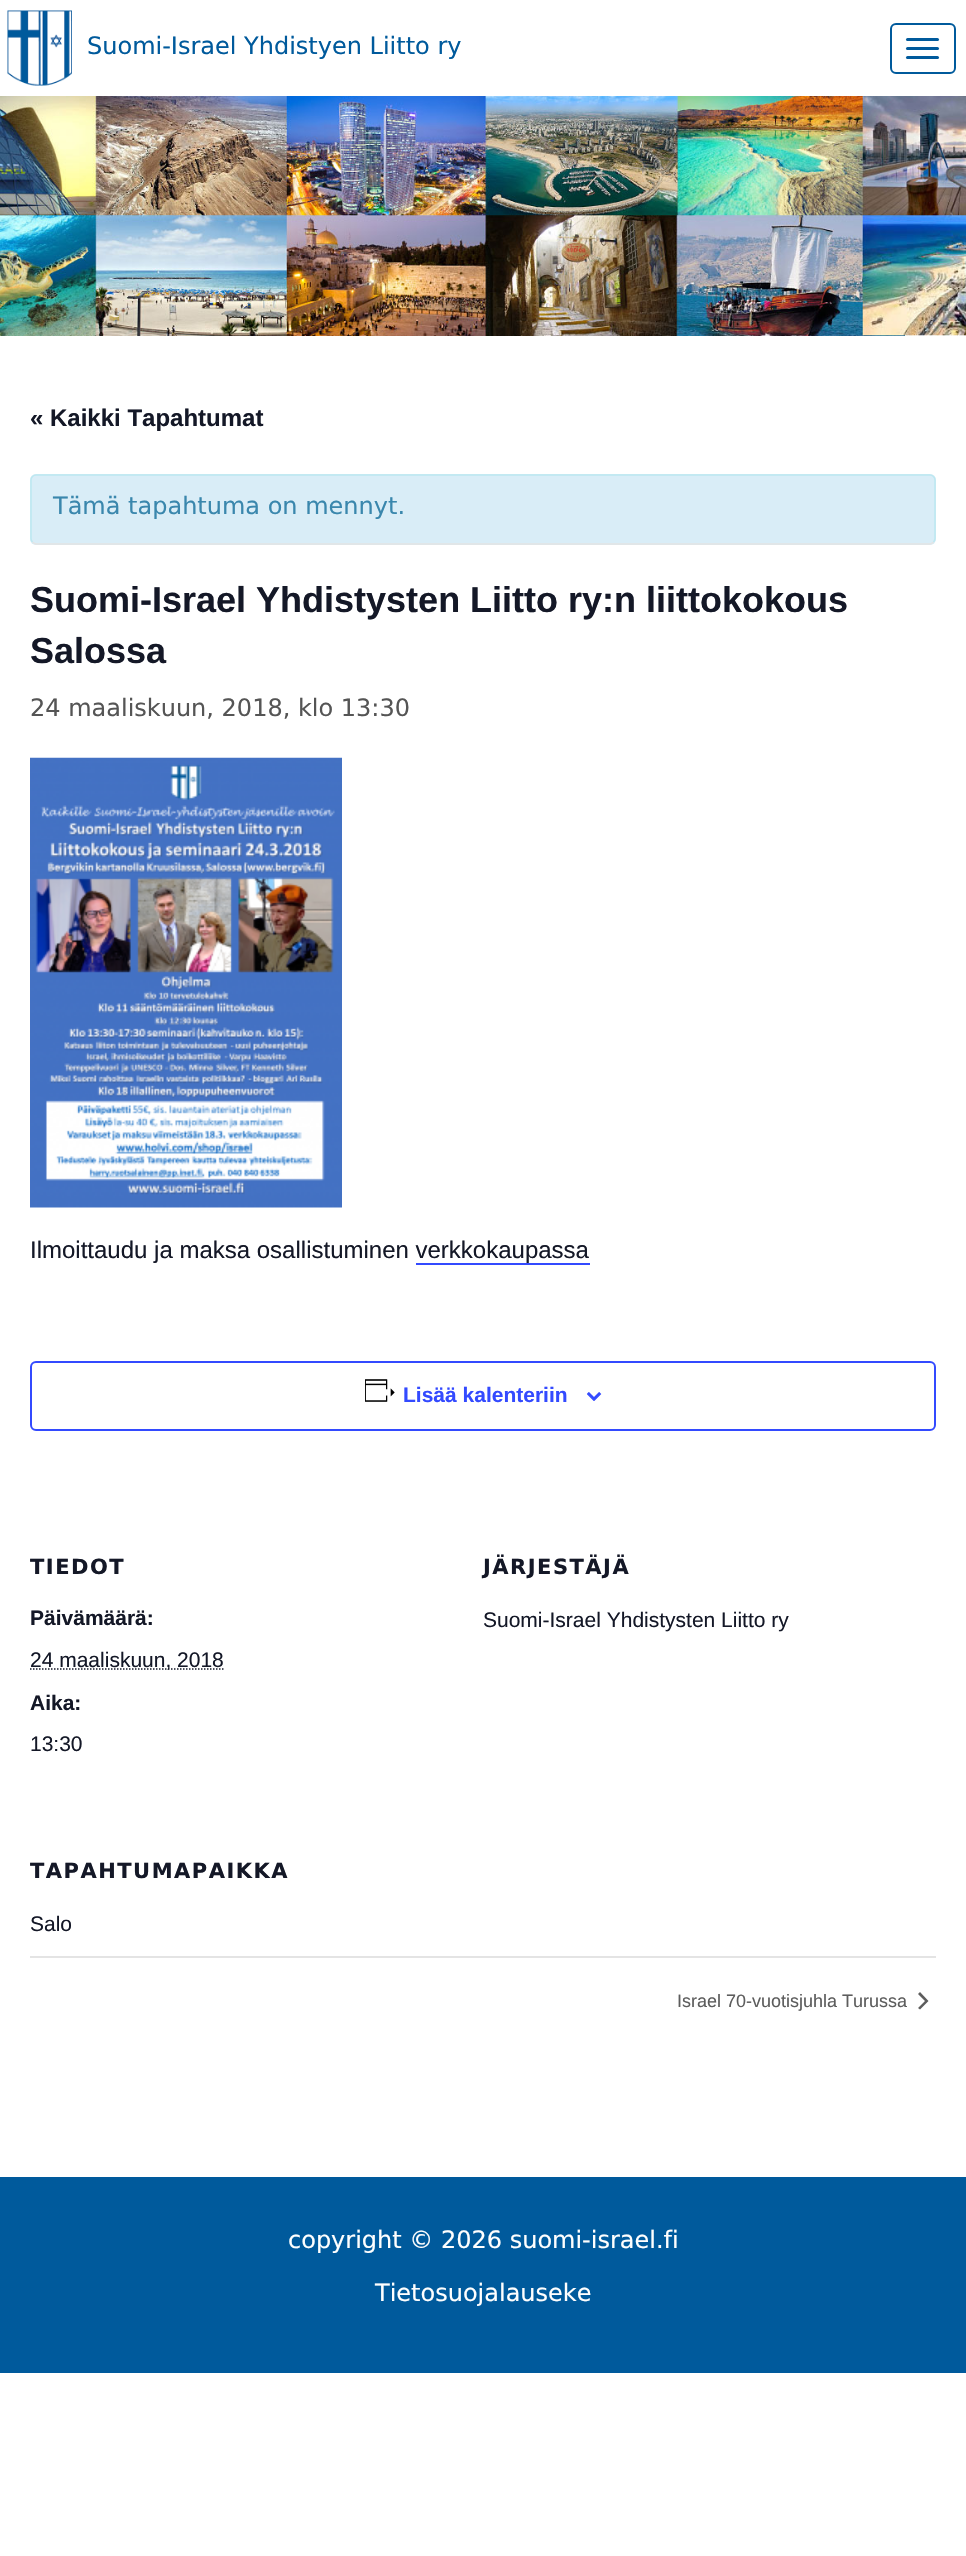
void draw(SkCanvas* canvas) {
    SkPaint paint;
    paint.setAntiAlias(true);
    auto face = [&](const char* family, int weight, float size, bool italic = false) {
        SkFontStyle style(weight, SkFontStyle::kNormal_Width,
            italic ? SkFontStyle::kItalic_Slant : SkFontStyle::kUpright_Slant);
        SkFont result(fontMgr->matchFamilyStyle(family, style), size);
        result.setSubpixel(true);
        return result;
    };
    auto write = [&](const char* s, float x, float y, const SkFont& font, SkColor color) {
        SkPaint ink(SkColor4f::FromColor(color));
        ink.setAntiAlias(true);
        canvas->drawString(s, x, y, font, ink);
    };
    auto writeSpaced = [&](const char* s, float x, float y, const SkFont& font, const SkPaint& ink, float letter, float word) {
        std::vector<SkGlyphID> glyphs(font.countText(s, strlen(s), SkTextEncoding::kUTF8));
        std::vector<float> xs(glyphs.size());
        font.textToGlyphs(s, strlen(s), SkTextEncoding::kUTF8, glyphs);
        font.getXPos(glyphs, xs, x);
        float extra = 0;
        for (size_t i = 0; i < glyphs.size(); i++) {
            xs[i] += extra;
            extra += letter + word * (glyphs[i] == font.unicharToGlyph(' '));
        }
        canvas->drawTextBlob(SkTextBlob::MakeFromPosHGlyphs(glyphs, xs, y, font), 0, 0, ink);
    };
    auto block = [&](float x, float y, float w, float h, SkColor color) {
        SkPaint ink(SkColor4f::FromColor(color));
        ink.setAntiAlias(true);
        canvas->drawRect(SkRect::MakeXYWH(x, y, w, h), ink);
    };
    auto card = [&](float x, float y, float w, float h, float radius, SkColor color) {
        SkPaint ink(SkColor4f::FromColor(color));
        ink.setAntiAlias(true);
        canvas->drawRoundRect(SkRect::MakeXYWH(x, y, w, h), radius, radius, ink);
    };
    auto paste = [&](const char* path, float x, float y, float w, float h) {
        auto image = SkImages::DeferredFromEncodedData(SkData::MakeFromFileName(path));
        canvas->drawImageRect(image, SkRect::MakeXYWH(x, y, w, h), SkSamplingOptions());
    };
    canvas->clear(SK_ColorWHITE);
    paste("pic1.png", 7, 10, 65, 76);
    auto kFont1 = face("DejaVu Sans", 400, 24);
    write("Suomi-Israel Yhdistyen Liitto ry", 87, 54, kFont1, SkColorSetRGB(0, 90, 156));
    paint.setStyle(SkPaint::kStroke_Style);
    paint.setStrokeWidth(2);
    paint.setColor(SkColorSetRGB(0, 90, 156));
    canvas->drawRoundRect(SkRect::MakeXYWH(891, 24, 64, 49), 5, 5, paint);
    card(906, 38, 33, 3, 1.5f, SkColorSetRGB(0, 90, 156));
    card(906, 47, 33, 3, 1.5f, SkColorSetRGB(0, 90, 156));
    card(906, 56, 33, 3, 1.5f, SkColorSetRGB(0, 90, 156));
    paste("pic2.png", 0, 96, 966, 240);
    auto kFont2 = face("Liberation Sans", 700, 24);
    write("« Kaikki Tapahtumat", 30, 426, kFont2, SkColorSetRGB(20, 24, 39));
    card(30, 474, 906, 71, 6, SkColorSetRGB(217, 237, 247));
    paint.setStrokeWidth(1.5f);
    paint.setColor(SkColorSetRGB(228, 228, 228));
    canvas->drawPath(SkPathBuilder().moveTo(933.5f, 542).cubicTo(932.5f, 543, 931.5f, 544, 930, 544).lineTo(36, 544).cubicTo(34.5f, 544, 33.5f, 543, 32.5f, 542).detach(), paint);
    paint.setColor(SkColorSetRGB(188, 232, 241));
    canvas->drawPath(SkPathBuilder().moveTo(32.5f, 542).cubicTo(31.5f, 541, 31, 540, 31, 538.5f).lineTo(31, 480).cubicTo(31, 478.5f, 31.5f, 477.5f, 32.5f, 476.5f).cubicTo(33.5f, 475.5f, 34.5f, 475, 36, 475).lineTo(930, 475).cubicTo(931.5f, 475, 932.5f, 475.5f, 933.5f, 476.5f).cubicTo(934.5f, 477.5f, 935, 478.5f, 935, 480).lineTo(935, 538.5f).cubicTo(935, 540, 934.5f, 541, 933.5f, 542).detach(), paint);
    write("Tämä tapahtuma on mennyt.", 53, 514, kFont1, SkColorSetRGB(58, 135, 173));
    auto kFont3 = face("Liberation Sans", 700, 36);
    write("Suomi-Israel Yhdistysten Liitto ry:n liittokokous", 30, 612, kFont3, SkColorSetRGB(20, 24, 39));
    write("Salossa", 30, 663, kFont3, SkColorSetRGB(20, 24, 39));
    write("24 maaliskuun, 2018, klo 13:30", 30, 716, kFont1, SkColorSetRGB(85, 85, 85));
    paste("pic3.png", 30, 757, 312, 451);
    auto kFont4 = face("Liberation Sans", 400, 24);
    write("Ilmoittaudu ja maksa osallistuminen verkkokaupassa", 30, 1258, kFont4, SkColorSetRGB(20, 24, 39));
    block(416, 1263, 174, 2, SkColorSetRGB(51, 74, 255));
    paint.setStrokeWidth(2);
    paint.setColor(SkColorSetRGB(51, 74, 255));
    canvas->drawRoundRect(SkRect::MakeXYWH(31, 1362, 904, 68), 5, 5, paint);
    paste("pic4.png", 365, 1379, 30, 23);
    auto kFont5 = face("Liberation Sans", 700, 21);
    write("Lisää kalenteriin", 403, 1402, kFont5, SkColorSetRGB(51, 74, 255));
    paste("pic5.png", 587, 1392, 15, 9);
    auto kFont6 = face("DejaVu Sans", 700, 21);
    paint.setStyle(SkPaint::kFill_Style);
    paint.setColor(SkColorSetRGB(20, 24, 39));
    writeSpaced("TIEDOT", 30, 1574, kFont6, paint, 1.5f, 0);
    write("Päivämäärä:", 30, 1625, kFont5, SkColorSetRGB(20, 24, 39));
    paint.setStyle(SkPaint::kStroke_Style);
    paint.setStrokeWidth(1.5f);
    paint.setPathEffect(SkDashPathEffect::Make({{1.5f, 1.5f}}, 0));
    canvas->drawPath(SkPathBuilder().moveTo(30, 1669).lineTo(224, 1669).detach(), paint);
    paint.setPathEffect(nullptr);
    auto kFont7 = face("Liberation Sans", 400, 21);
    write("24 maaliskuun, 2018", 30, 1667, kFont7, SkColorSetRGB(20, 24, 39));
    write("Aika:", 30, 1710, kFont5, SkColorSetRGB(20, 24, 39));
    write("13:30", 30, 1751, kFont7, SkColorSetRGB(20, 24, 39));
    paint.setStyle(SkPaint::kFill_Style);
    writeSpaced("JÄRJESTÄJÄ", 483, 1574, kFont6, paint, 1.5f, 0);
    write("Suomi-Israel Yhdistysten Liitto ry", 483, 1627, kFont7, SkColorSetRGB(20, 24, 39));
    writeSpaced("TAPAHTUMAPAIKKA", 30, 1878, kFont6, paint, 1.5f, 0);
    write("Salo", 30, 1931, kFont7, SkColorSetRGB(20, 24, 39));
    block(30, 1956, 906, 2, SkColorSetRGB(228, 228, 228));
    auto kFont8 = face("Liberation Sans", 400, 18);
    write("Israel 70-vuotisjuhla Turussa", 677, 2007, kFont8, SkColorSetRGB(93, 93, 93));
    paint.setColor(SkColorSetRGB(93, 93, 93));
    canvas->drawPath(SkPathBuilder().moveTo(918, 1994).lineTo(920, 1992).lineTo(928.5f, 2001).lineTo(920, 2009.5f).lineTo(918, 2008).lineTo(925, 2001).close().detach(), paint);
    block(0, 2177, 966, 196, SkColorSetRGB(0, 90, 156));
    write("copyright © 2026 suomi-israel.fi", 288, 2248, kFont1, SK_ColorWHITE);
    write("Tietosuojalauseke", 375, 2301, kFont1, SK_ColorWHITE);
}
